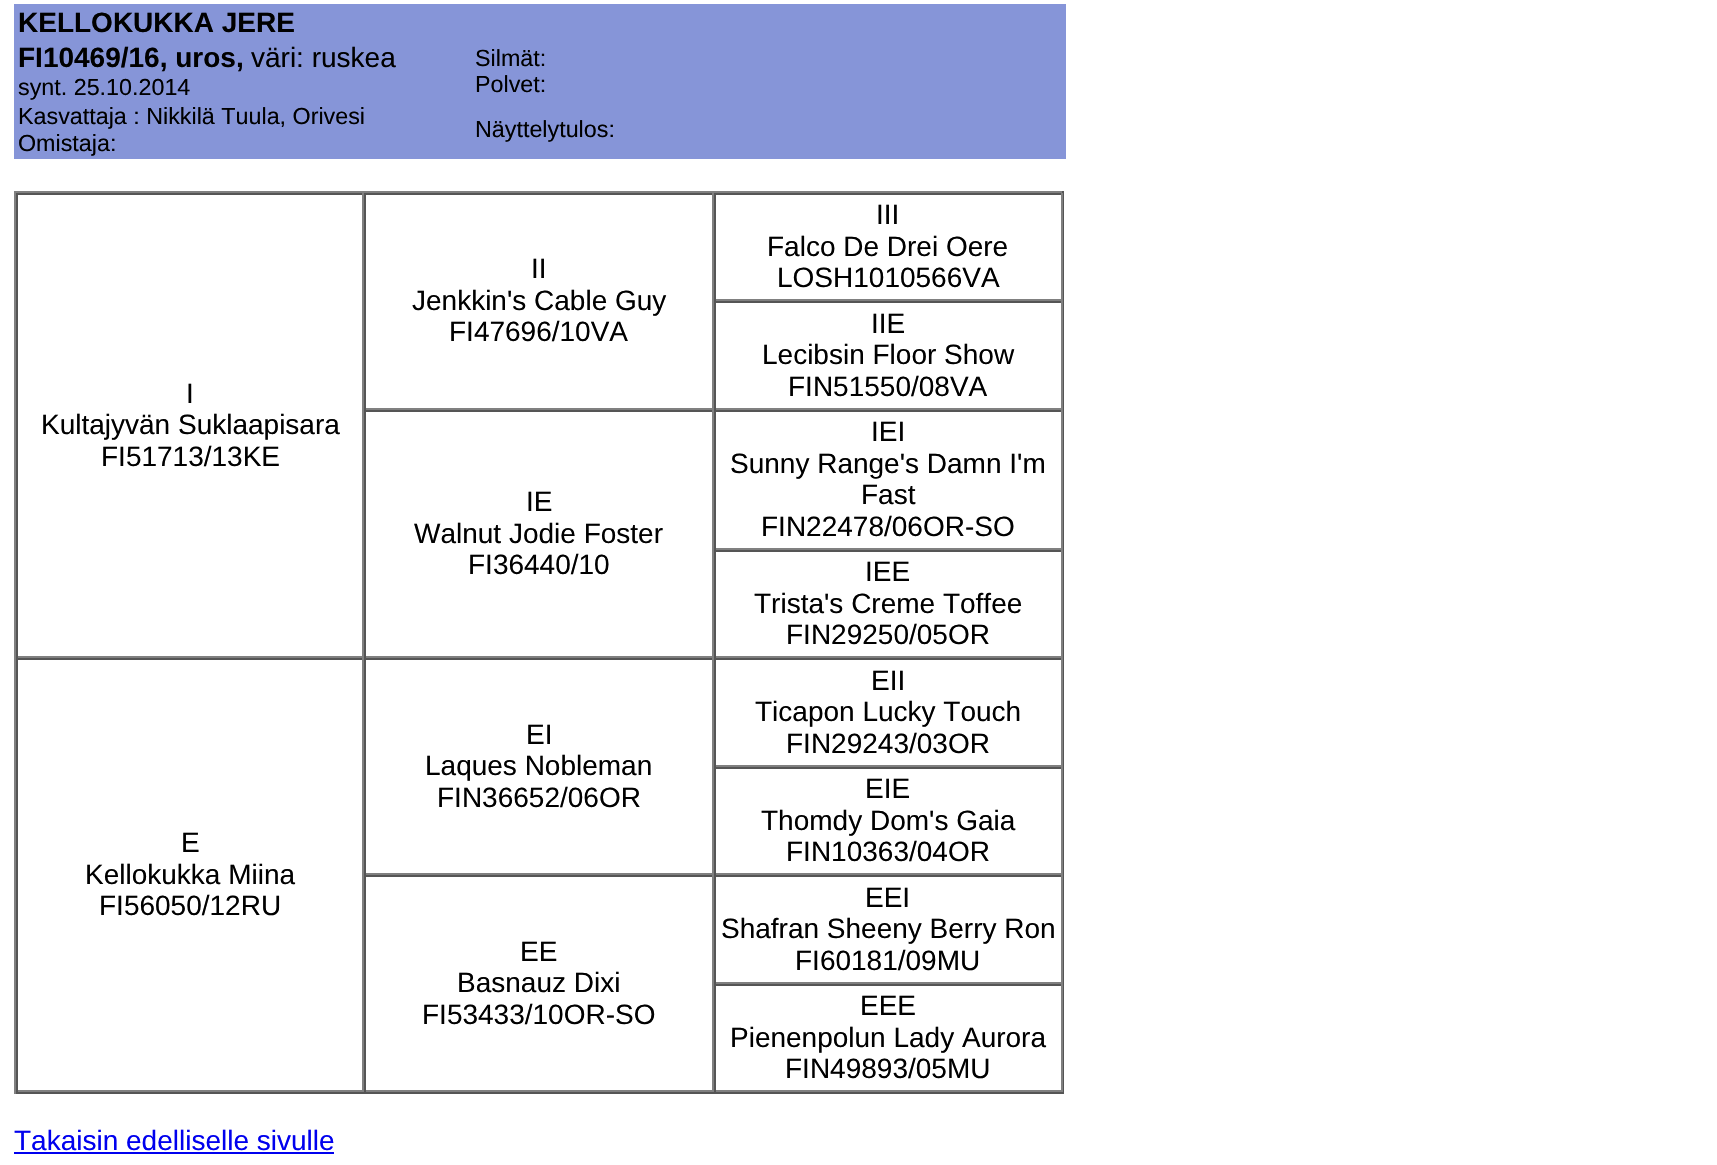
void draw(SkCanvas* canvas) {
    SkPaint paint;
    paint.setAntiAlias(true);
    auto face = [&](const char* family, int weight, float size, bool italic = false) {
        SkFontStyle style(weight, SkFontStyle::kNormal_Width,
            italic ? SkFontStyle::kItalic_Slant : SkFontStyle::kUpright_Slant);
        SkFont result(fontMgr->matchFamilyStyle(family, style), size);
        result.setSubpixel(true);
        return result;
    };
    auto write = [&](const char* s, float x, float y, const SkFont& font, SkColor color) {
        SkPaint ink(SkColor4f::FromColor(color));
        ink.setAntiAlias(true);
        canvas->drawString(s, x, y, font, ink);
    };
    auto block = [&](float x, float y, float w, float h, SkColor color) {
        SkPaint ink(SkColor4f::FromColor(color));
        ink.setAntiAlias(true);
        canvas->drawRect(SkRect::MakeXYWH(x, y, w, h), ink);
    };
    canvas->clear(SK_ColorWHITE);
    block(14, 4, 1052, 155, SkColorSetRGB(134, 149, 216));
    auto kFont1 = face("Liberation Sans", 700, 28);
    write("KELLOKUKKA JERE", 18, 32, kFont1, SK_ColorBLACK);
    write("FI10469/16, uros,", 18, 67, kFont1, SK_ColorBLACK);
    auto kFont2 = face("Liberation Sans", 400, 28);
    write("väri: ruskea", 251, 67, kFont2, SK_ColorBLACK);
    auto kFont3 = face("Liberation Sans", 400, 23.3f);
    write("synt. 25.10.2014", 18, 95, kFont3, SK_ColorBLACK);
    write("Silmät:", 475, 66, kFont3, SK_ColorBLACK);
    write("Polvet:", 475, 92, kFont3, SK_ColorBLACK);
    write("Kasvattaja : Nikkilä Tuula, Orivesi", 18, 124, kFont3, SK_ColorBLACK);
    write("Omistaja:", 18, 151, kFont3, SK_ColorBLACK);
    write("Näyttelytulos:", 475, 137, kFont3, SK_ColorBLACK);
    block(14, 191, 1050, 2, SkColorSetRGB(128, 128, 128));
    block(1062, 191, 2, 903, SkColorSetRGB(85, 85, 85));
    block(14, 1092, 1050, 2, SkColorSetRGB(85, 85, 85));
    block(14, 191, 2, 903, SkColorSetRGB(128, 128, 128));
    block(16, 193, 1046, 2, SkColorSetRGB(85, 85, 85));
    block(1061, 193, 2, 108, SkColorSetRGB(128, 128, 128));
    block(714, 299, 348, 2, SkColorSetRGB(128, 128, 128));
    block(714, 193, 2, 108, SkColorSetRGB(85, 85, 85));
    write("III", 876, 224, kFont2, SK_ColorBLACK);
    write("Falco De Drei Oere", 767, 256, kFont2, SK_ColorBLACK);
    write("LOSH1010566VA", 777, 287, kFont2, SK_ColorBLACK);
    block(712, 193, 2, 217, SkColorSetRGB(128, 128, 128));
    block(364, 408, 350, 2, SkColorSetRGB(128, 128, 128));
    block(364, 193, 2, 217, SkColorSetRGB(85, 85, 85));
    write("II", 531, 278, kFont2, SK_ColorBLACK);
    write("Jenkkin's Cable Guy", 412, 310, kFont2, SK_ColorBLACK);
    write("FI47696/10VA", 449, 341, kFont2, SK_ColorBLACK);
    block(362, 193, 2, 465, SkColorSetRGB(128, 128, 128));
    block(16, 656, 348, 2, SkColorSetRGB(128, 128, 128));
    block(16, 193, 2, 465, SkColorSetRGB(85, 85, 85));
    write("I", 186, 403, kFont2, SK_ColorBLACK);
    write("Kultajyvän Suklaapisara", 41, 434, kFont2, SK_ColorBLACK);
    write("FI51713/13KE", 101, 466, kFont2, SK_ColorBLACK);
    block(714, 301, 348, 2, SkColorSetRGB(85, 85, 85));
    block(1061, 301, 2, 109, SkColorSetRGB(128, 128, 128));
    block(714, 408, 348, 2, SkColorSetRGB(128, 128, 128));
    block(714, 301, 2, 109, SkColorSetRGB(85, 85, 85));
    write("IIE", 871, 333, kFont2, SK_ColorBLACK);
    write("Lecibsin Floor Show", 762, 364, kFont2, SK_ColorBLACK);
    write("FIN51550/08VA", 788, 396, kFont2, SK_ColorBLACK);
    block(364, 410, 698, 2, SkColorSetRGB(85, 85, 85));
    block(712, 410, 2, 248, SkColorSetRGB(128, 128, 128));
    block(364, 656, 350, 2, SkColorSetRGB(128, 128, 128));
    block(364, 410, 2, 248, SkColorSetRGB(85, 85, 85));
    write("IE", 526, 511, kFont2, SK_ColorBLACK);
    write("Walnut Jodie Foster", 414, 543, kFont2, SK_ColorBLACK);
    write("FI36440/10", 468, 574, kFont2, SK_ColorBLACK);
    block(1061, 410, 2, 140, SkColorSetRGB(128, 128, 128));
    block(714, 548, 348, 2, SkColorSetRGB(128, 128, 128));
    block(714, 410, 2, 140, SkColorSetRGB(85, 85, 85));
    write("IEI", 871, 441, kFont2, SK_ColorBLACK);
    write("Sunny Range's Damn I'm", 730, 473, kFont2, SK_ColorBLACK);
    write("Fast", 861, 504, kFont2, SK_ColorBLACK);
    write("FIN22478/06OR-SO", 761, 536, kFont2, SK_ColorBLACK);
    block(714, 550, 348, 2, SkColorSetRGB(85, 85, 85));
    block(1061, 550, 2, 108, SkColorSetRGB(128, 128, 128));
    block(714, 656, 348, 2, SkColorSetRGB(128, 128, 128));
    block(714, 550, 2, 108, SkColorSetRGB(85, 85, 85));
    write("IEE", 865, 581, kFont2, SK_ColorBLACK);
    write("Trista's Creme Toffee", 754, 613, kFont2, SK_ColorBLACK);
    write("FIN29250/05OR", 786, 644, kFont2, SK_ColorBLACK);
    block(16, 658, 1046, 2, SkColorSetRGB(85, 85, 85));
    block(1061, 658, 2, 109, SkColorSetRGB(128, 128, 128));
    block(714, 765, 348, 2, SkColorSetRGB(128, 128, 128));
    block(714, 658, 2, 109, SkColorSetRGB(85, 85, 85));
    write("EII", 871, 690, kFont2, SK_ColorBLACK);
    write("Ticapon Lucky Touch", 755, 721, kFont2, SK_ColorBLACK);
    write("FIN29243/03OR", 786, 753, kFont2, SK_ColorBLACK);
    block(712, 658, 2, 217, SkColorSetRGB(128, 128, 128));
    block(364, 873, 350, 2, SkColorSetRGB(128, 128, 128));
    block(364, 658, 2, 217, SkColorSetRGB(85, 85, 85));
    write("EI", 526, 744, kFont2, SK_ColorBLACK);
    write("Laques Nobleman", 425, 775, kFont2, SK_ColorBLACK);
    write("FIN36652/06OR", 437, 807, kFont2, SK_ColorBLACK);
    block(362, 658, 2, 434, SkColorSetRGB(128, 128, 128));
    block(16, 1090, 348, 2, SkColorSetRGB(128, 128, 128));
    block(16, 658, 2, 434, SkColorSetRGB(85, 85, 85));
    write("E", 181, 852, kFont2, SK_ColorBLACK);
    write("Kellokukka Miina", 85, 884, kFont2, SK_ColorBLACK);
    write("FI56050/12RU", 99, 915, kFont2, SK_ColorBLACK);
    block(714, 767, 348, 2, SkColorSetRGB(85, 85, 85));
    block(1061, 767, 2, 108, SkColorSetRGB(128, 128, 128));
    block(714, 873, 348, 2, SkColorSetRGB(128, 128, 128));
    block(714, 767, 2, 108, SkColorSetRGB(85, 85, 85));
    write("EIE", 865, 798, kFont2, SK_ColorBLACK);
    write("Thomdy Dom's Gaia", 761, 830, kFont2, SK_ColorBLACK);
    write("FIN10363/04OR", 786, 861, kFont2, SK_ColorBLACK);
    block(364, 875, 698, 2, SkColorSetRGB(85, 85, 85));
    block(1061, 875, 2, 109, SkColorSetRGB(128, 128, 128));
    block(714, 982, 348, 2, SkColorSetRGB(128, 128, 128));
    block(714, 875, 2, 109, SkColorSetRGB(85, 85, 85));
    write("EEI", 865, 907, kFont2, SK_ColorBLACK);
    write("Shafran Sheeny Berry Ron", 721, 938, kFont2, SK_ColorBLACK);
    write("FI60181/09MU", 795, 970, kFont2, SK_ColorBLACK);
    block(712, 875, 2, 217, SkColorSetRGB(128, 128, 128));
    block(364, 1090, 350, 2, SkColorSetRGB(128, 128, 128));
    block(364, 875, 2, 217, SkColorSetRGB(85, 85, 85));
    write("EE", 520, 961, kFont2, SK_ColorBLACK);
    write("Basnauz Dixi", 457, 992, kFont2, SK_ColorBLACK);
    write("FI53433/10OR-SO", 422, 1024, kFont2, SK_ColorBLACK);
    block(714, 984, 348, 2, SkColorSetRGB(85, 85, 85));
    block(1061, 984, 2, 108, SkColorSetRGB(128, 128, 128));
    block(714, 1090, 348, 2, SkColorSetRGB(128, 128, 128));
    block(714, 984, 2, 108, SkColorSetRGB(85, 85, 85));
    write("EEE", 860, 1015, kFont2, SK_ColorBLACK);
    write("Pienenpolun Lady Aurora", 730, 1047, kFont2, SK_ColorBLACK);
    write("FIN49893/05MU", 785, 1078, kFont2, SK_ColorBLACK);
    write("Takaisin edelliselle sivulle", 14, 1150, kFont2, SkColorSetRGB(0, 0, 238));
    block(14, 1152, 320, 2, SkColorSetRGB(0, 0, 238));
}
